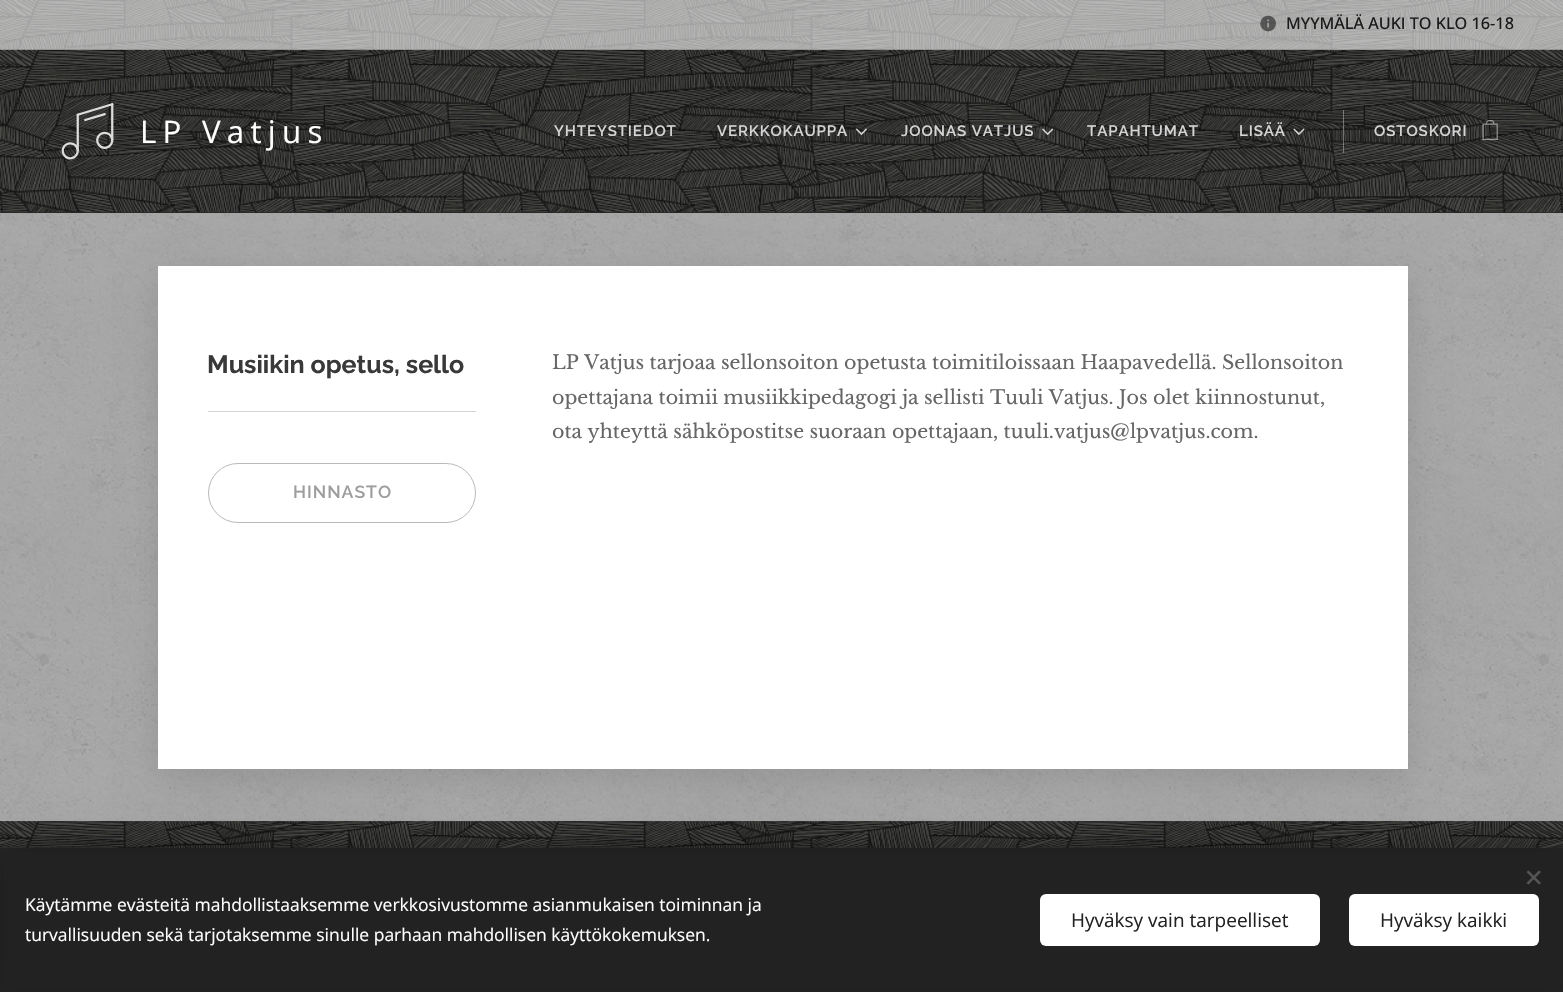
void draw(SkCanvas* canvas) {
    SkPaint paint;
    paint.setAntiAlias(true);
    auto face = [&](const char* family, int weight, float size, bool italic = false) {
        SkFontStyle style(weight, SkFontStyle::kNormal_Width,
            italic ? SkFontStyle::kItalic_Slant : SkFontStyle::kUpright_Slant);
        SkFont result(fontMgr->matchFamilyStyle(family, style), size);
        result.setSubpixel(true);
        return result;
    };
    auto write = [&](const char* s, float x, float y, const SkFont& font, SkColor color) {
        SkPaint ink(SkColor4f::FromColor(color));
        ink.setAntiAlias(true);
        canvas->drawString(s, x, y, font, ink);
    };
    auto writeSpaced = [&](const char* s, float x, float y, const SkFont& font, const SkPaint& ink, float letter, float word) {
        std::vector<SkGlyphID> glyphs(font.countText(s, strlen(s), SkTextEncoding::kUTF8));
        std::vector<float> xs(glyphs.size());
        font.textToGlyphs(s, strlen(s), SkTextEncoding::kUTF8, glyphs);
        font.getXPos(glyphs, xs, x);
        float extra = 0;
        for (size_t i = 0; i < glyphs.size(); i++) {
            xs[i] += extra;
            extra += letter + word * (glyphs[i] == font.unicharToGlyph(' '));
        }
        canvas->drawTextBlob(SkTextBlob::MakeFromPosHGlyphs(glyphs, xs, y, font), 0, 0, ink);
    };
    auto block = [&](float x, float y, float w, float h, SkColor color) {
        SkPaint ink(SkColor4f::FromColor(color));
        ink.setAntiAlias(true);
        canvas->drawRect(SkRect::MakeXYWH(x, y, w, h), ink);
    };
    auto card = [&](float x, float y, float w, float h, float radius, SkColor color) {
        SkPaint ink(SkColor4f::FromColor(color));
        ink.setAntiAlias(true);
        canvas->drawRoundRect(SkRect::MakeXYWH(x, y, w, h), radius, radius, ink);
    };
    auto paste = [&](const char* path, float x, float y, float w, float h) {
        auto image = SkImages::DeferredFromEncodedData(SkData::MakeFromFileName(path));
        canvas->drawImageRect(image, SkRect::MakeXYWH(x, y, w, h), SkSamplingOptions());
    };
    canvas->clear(SkColorSetRGB(39, 39, 39));
    paste("pic1.png", 0, 0, 1563, 50);
    paste("pic2.png", 1260, 15, 16, 17);
    auto kFont1 = face("Open Sans", 500, 16.25f);
    write("MYYMÄLÄ AUKI TO KLO 16-18", 1286, 29, kFont1, SkColorSetRGB(26, 26, 26));
    block(0, 49, 1563, 1, SkColorSetARGB(38, 0, 0, 0));
    paste("pic3.png", 0, 50, 1563, 163);
    paste("pic4.png", 61, 103, 53, 57);
    auto kFont2 = face("Open Sans", 400, 31.25f);
    paint.setColor(SK_ColorWHITE);
    writeSpaced("LP Vatjus", 140, 143, kFont2, paint, 6.25f, 0);
    auto kFont3 = face("Raleway", 600, 15);
    paint.setColor(SkColorSetRGB(213, 213, 213));
    writeSpaced("YHTEYSTIEDOT", 554, 136, kFont3, paint, 0.9f, 0);
    writeSpaced("VERKKOKAUPPA", 717, 136, kFont3, paint, 0.9f, 0);
    paste("pic5.png", 855, 128, 12, 7);
    writeSpaced("JOONAS VATJUS", 901, 136, kFont3, paint, 0.9f, 0);
    paste("pic6.png", 1042, 128, 12, 7);
    writeSpaced("TAPAHTUMAT", 1087, 136, kFont3, paint, 0.9f, 0);
    writeSpaced("LISÄÄ", 1239, 136, kFont3, paint, 0.9f, 0);
    paste("pic7.png", 1293, 128, 12, 7);
    block(1343, 110, 1, 43, SkColorSetARGB(89, 255, 255, 255));
    writeSpaced("OSTOSKORI", 1374, 136, kFont3, paint, 0.9f, 0);
    paste("pic8.png", 1482, 120, 16, 20);
    paste("pic10.png", 0, 821, 1563, 27);
    paste("pic9.png", 0, 213, 1563, 609);
    paint.setColor(SkColorSetARGB(26, 0, 0, 0));
    paint.setMaskFilter(SkMaskFilter::MakeBlur(kNormal_SkBlurStyle, 15.5f));
    canvas->drawRect(SkRect::MakeXYWH(158, 276, 1250, 503), paint);
    paint.setMaskFilter(nullptr);
    block(158, 266, 1250, 503, SK_ColorWHITE);
    auto kFont4 = face("Raleway", 700, 25);
    write("Musiikin opetus, sello", 207, 373, kFont4, SkColorSetRGB(57, 57, 57));
    block(208, 411, 268, 1, SkColorSetRGB(212, 212, 212));
    paint.setStyle(SkPaint::kStroke_Style);
    paint.setStrokeWidth(1);
    paint.setColor(SkColorSetRGB(186, 186, 186));
    canvas->drawRoundRect(SkRect::MakeXYWH(208.5f, 463.5f, 267, 59), 29.5f, 29.5f, paint);
    auto kFont5 = face("Raleway", 600, 17.5f);
    paint.setStyle(SkPaint::kFill_Style);
    paint.setColor(SkColorSetRGB(157, 157, 157));
    writeSpaced("HINNASTO", 293, 498, kFont5, paint, 1, 0);
    auto kFont6 = face("Libre Baskerville", 400, 19);
    write("LP Vatjus tarjoaa sellonsoiton opetusta toimitiloissaan Haapavedellä. Sellonsoiton", 552, 369, kFont6, SkColorSetRGB(102, 102, 102));
    write("opettajana toimii musiikkipedagogi ja sellisti Tuuli Vatjus. Jos olet kiinnostunut,", 552, 404, kFont6, SkColorSetRGB(102, 102, 102));
    write("ota yhteyttä sähköpostitse suoraan opettajaan, tuuli.vatjus@lpvatjus.com.", 552, 438, kFont6, SkColorSetRGB(102, 102, 102));
    paint.setColor(SkColorSetARGB(84, 0, 0, 0));
    paint.setMaskFilter(SkMaskFilter::MakeBlur(kNormal_SkBlurStyle, 15.5f));
    canvas->drawRect(SkRect::MakeXYWH(0, 848, 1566, 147), paint);
    paint.setMaskFilter(nullptr);
    block(4, 852, 1558, 139, SkColorSetRGB(34, 34, 34));
    paint.setColor(SkColorSetRGB(85, 85, 85));
    canvas->drawPath(SkPathBuilder().moveTo(1526.5f, 883).lineTo(1539, 870.5f).lineTo(1541, 872).lineTo(1528.5f, 884.5f).close().detach(), paint);
    canvas->drawPath(SkPathBuilder().moveTo(1528.5f, 870.5f).lineTo(1541, 883).lineTo(1539, 884.5f).lineTo(1526.5f, 872).close().detach(), paint);
    auto kFont7 = face("Open Sans", 400, 17.5f);
    write("Käytämme evästeitä mahdollistaaksemme verkkosivustomme asianmukaisen toiminnan ja", 25, 911, kFont7, SK_ColorWHITE);
    write("turvallisuuden sekä tarjotaksemme sinulle parhaan mahdollisen käyttökokemuksen.", 25, 941, kFont7, SK_ColorWHITE);
    card(1040, 894, 280, 52, 6, SK_ColorWHITE);
    auto kFont8 = face("Open Sans", 400, 19);
    write("Hyväksy vain tarpeelliset", 1071, 927, kFont8, SkColorSetRGB(34, 34, 34));
    card(1349, 894, 190, 52, 6, SK_ColorWHITE);
    write("Hyväksy kaikki", 1380, 927, kFont8, SkColorSetRGB(34, 34, 34));
}
